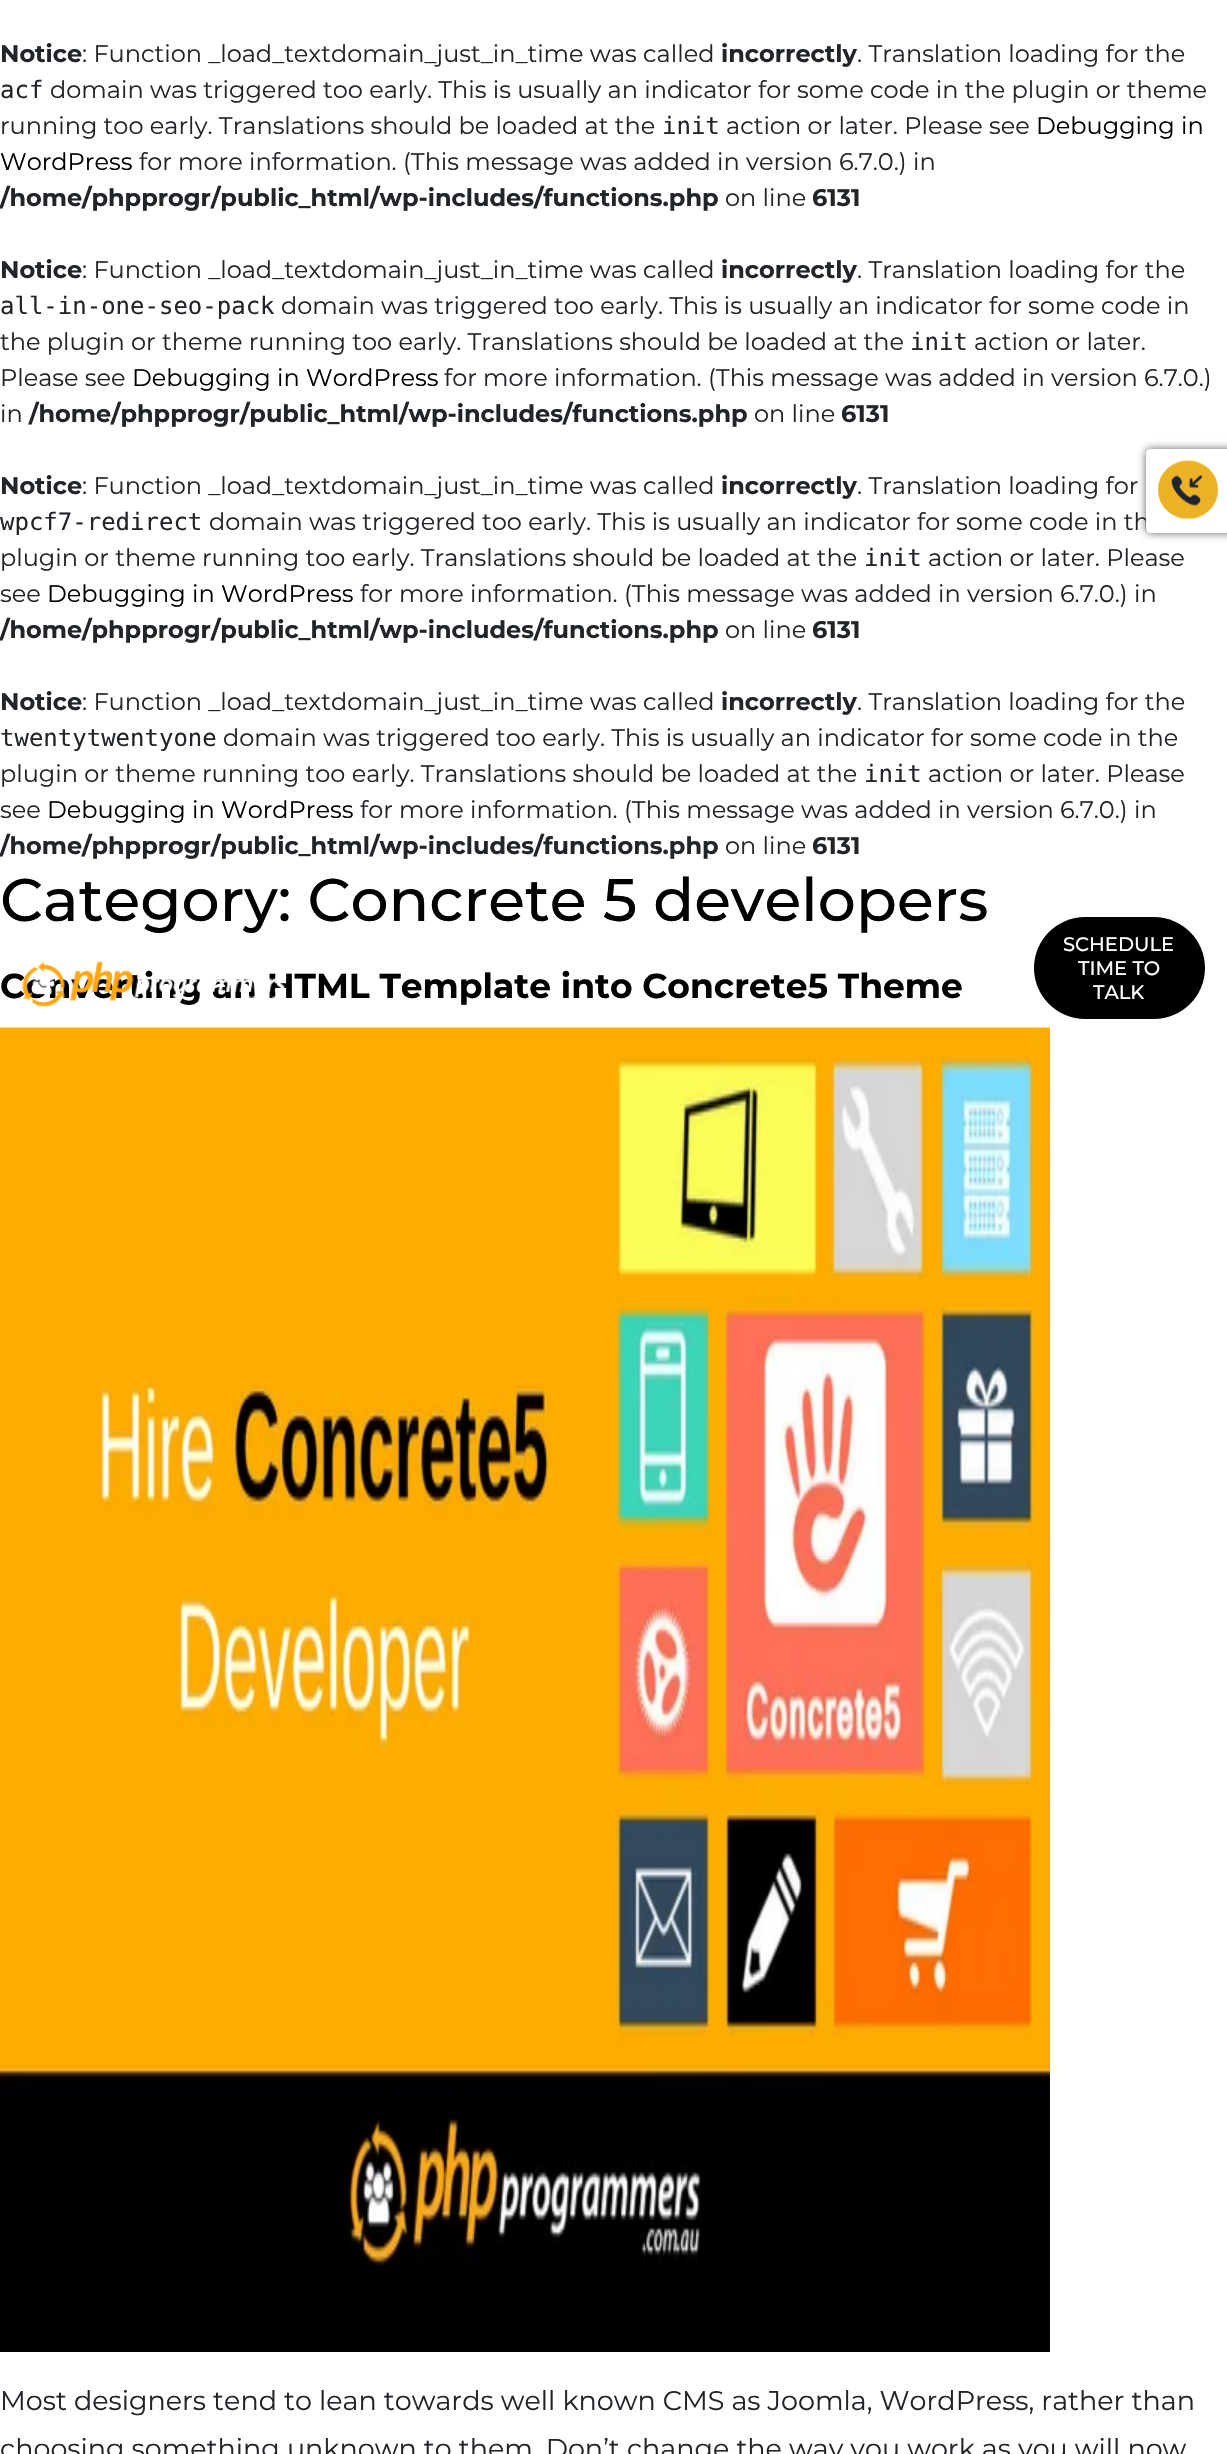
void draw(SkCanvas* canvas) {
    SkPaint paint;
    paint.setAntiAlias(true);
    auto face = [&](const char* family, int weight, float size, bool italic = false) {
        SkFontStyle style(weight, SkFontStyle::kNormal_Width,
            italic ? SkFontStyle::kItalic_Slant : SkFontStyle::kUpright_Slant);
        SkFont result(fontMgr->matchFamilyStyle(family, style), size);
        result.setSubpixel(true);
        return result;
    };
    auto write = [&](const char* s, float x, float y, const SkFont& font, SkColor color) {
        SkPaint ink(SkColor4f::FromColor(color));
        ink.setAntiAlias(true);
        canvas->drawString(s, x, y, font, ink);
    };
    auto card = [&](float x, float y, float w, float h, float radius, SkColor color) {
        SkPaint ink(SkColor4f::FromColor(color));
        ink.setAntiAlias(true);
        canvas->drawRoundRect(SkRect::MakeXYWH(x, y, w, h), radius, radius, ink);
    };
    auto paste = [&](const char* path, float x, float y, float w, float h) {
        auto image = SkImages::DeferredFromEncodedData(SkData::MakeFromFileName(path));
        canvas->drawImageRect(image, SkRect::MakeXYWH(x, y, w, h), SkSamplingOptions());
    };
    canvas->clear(SK_ColorWHITE);
    auto kFont1 = face("Montserrat", 700, 24);
    write("Notice", 0, 62, kFont1, SkColorSetRGB(33, 37, 41));
    auto kFont2 = face("Montserrat", 400, 24);
    write(": Function _load_textdomain_just_in_time was called", 82, 62, kFont2, SkColorSetRGB(33, 37, 41));
    write("incorrectly", 721, 62, kFont1, SkColorSetRGB(33, 37, 41));
    write(". Translation loading for the", 857, 62, kFont2, SkColorSetRGB(33, 37, 41));
    auto kFont3 = face("DejaVu Sans Mono", 400, 24);
    write("acf", 0, 98, kFont3, SkColorSetRGB(33, 37, 41));
    write("domain was triggered too early. This is usually an indicator for some code in the plugin or theme", 50, 98, kFont2, SkColorSetRGB(33, 37, 41));
    write("running too early. Translations should be loaded at the", 0, 134, kFont2, SkColorSetRGB(33, 37, 41));
    write("init", 662, 134, kFont3, SkColorSetRGB(33, 37, 41));
    write("action or later. Please see", 726, 134, kFont2, SkColorSetRGB(33, 37, 41));
    write("Debugging in", 1036, 134, kFont2, SK_ColorBLACK);
    write("WordPress", 0, 170, kFont2, SK_ColorBLACK);
    write("for more information. (This message was added in version 6.7.0.) in", 139, 170, kFont2, SkColorSetRGB(33, 37, 41));
    write("/home/phpprogr/public_html/wp-includes/functions.php", 0, 206, kFont1, SkColorSetRGB(33, 37, 41));
    write("on line", 725, 206, kFont2, SkColorSetRGB(33, 37, 41));
    write("6131", 812, 206, kFont1, SkColorSetRGB(33, 37, 41));
    write("Notice", 0, 278, kFont1, SkColorSetRGB(33, 37, 41));
    write(": Function _load_textdomain_just_in_time was called", 82, 278, kFont2, SkColorSetRGB(33, 37, 41));
    write("incorrectly", 721, 278, kFont1, SkColorSetRGB(33, 37, 41));
    write(". Translation loading for the", 857, 278, kFont2, SkColorSetRGB(33, 37, 41));
    write("all-in-one-seo-pack", 0, 314, kFont3, SkColorSetRGB(33, 37, 41));
    write("domain was triggered too early. This is usually an indicator for some code in", 281, 314, kFont2, SkColorSetRGB(33, 37, 41));
    write("the plugin or theme running too early. Translations should be loaded at the", 0, 350, kFont2, SkColorSetRGB(33, 37, 41));
    write("init", 910, 350, kFont3, SkColorSetRGB(33, 37, 41));
    write("action or later.", 974, 350, kFont2, SkColorSetRGB(33, 37, 41));
    write("Please see", 0, 386, kFont2, SkColorSetRGB(33, 37, 41));
    write("Debugging in WordPress", 132, 386, kFont2, SK_ColorBLACK);
    write("for more information. (This message was added in version 6.7.0.)", 444, 386, kFont2, SkColorSetRGB(33, 37, 41));
    write("in", 0, 422, kFont2, SkColorSetRGB(33, 37, 41));
    write("/home/phpprogr/public_html/wp-includes/functions.php", 29, 422, kFont1, SkColorSetRGB(33, 37, 41));
    write("on line", 754, 422, kFont2, SkColorSetRGB(33, 37, 41));
    write("6131", 841, 422, kFont1, SkColorSetRGB(33, 37, 41));
    write("Notice", 0, 494, kFont1, SkColorSetRGB(33, 37, 41));
    write(": Function _load_textdomain_just_in_time was called", 82, 494, kFont2, SkColorSetRGB(33, 37, 41));
    write("incorrectly", 721, 494, kFont1, SkColorSetRGB(33, 37, 41));
    write(". Translation loading for", 857, 494, kFont2, SkColorSetRGB(33, 37, 41));
    paint.setColor(SkColorSetRGB(97, 97, 97));
    paint.setMaskFilter(SkMaskFilter::MakeBlur(kNormal_SkBlurStyle, 4.5f));
    canvas->drawRoundRect(SkRect::MakeXYWH(1146, 449, 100, 84), 5, 5, paint);
    paint.setMaskFilter(nullptr);
    write("domain was triggered too early. This is usually an indicator for some code in th", 209, 530, kFont2, SkColorSetRGB(33, 37, 41));
    paint.setColor(SK_ColorWHITE);
    canvas->drawPath(SkPathBuilder().moveTo(1151, 449).lineTo(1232, 449).lineTo(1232, 533).lineTo(1151, 533).cubicTo(1148, 533, 1146, 531, 1146, 528).lineTo(1146, 454).cubicTo(1146, 451, 1148, 449, 1151, 449).close().detach(), paint);
    paste("pic1.png", 1158, 460, 60, 60);
    write("wpcf7-redirect", 0, 530, kFont3, SkColorSetRGB(33, 37, 41));
    write("plugin or theme running too early. Translations should be loaded at the", 0, 566, kFont2, SkColorSetRGB(33, 37, 41));
    write("init", 864, 566, kFont3, SkColorSetRGB(33, 37, 41));
    write("action or later. Please", 928, 566, kFont2, SkColorSetRGB(33, 37, 41));
    write("see", 0, 602, kFont2, SkColorSetRGB(33, 37, 41));
    write("Debugging in WordPress", 47, 602, kFont2, SK_ColorBLACK);
    write("for more information. (This message was added in version 6.7.0.) in", 360, 602, kFont2, SkColorSetRGB(33, 37, 41));
    write("/home/phpprogr/public_html/wp-includes/functions.php", 0, 638, kFont1, SkColorSetRGB(33, 37, 41));
    write("on line", 725, 638, kFont2, SkColorSetRGB(33, 37, 41));
    write("6131", 812, 638, kFont1, SkColorSetRGB(33, 37, 41));
    write("Notice", 0, 710, kFont1, SkColorSetRGB(33, 37, 41));
    write(": Function _load_textdomain_just_in_time was called", 82, 710, kFont2, SkColorSetRGB(33, 37, 41));
    write("incorrectly", 721, 710, kFont1, SkColorSetRGB(33, 37, 41));
    write(". Translation loading for the", 857, 710, kFont2, SkColorSetRGB(33, 37, 41));
    write("twentytwentyone", 0, 746, kFont3, SkColorSetRGB(33, 37, 41));
    write("domain was triggered too early. This is usually an indicator for some code in the", 223, 746, kFont2, SkColorSetRGB(33, 37, 41));
    write("plugin or theme running too early. Translations should be loaded at the", 0, 782, kFont2, SkColorSetRGB(33, 37, 41));
    write("init", 864, 782, kFont3, SkColorSetRGB(33, 37, 41));
    write("action or later. Please", 928, 782, kFont2, SkColorSetRGB(33, 37, 41));
    write("see", 0, 818, kFont2, SkColorSetRGB(33, 37, 41));
    write("Debugging in WordPress", 47, 818, kFont2, SK_ColorBLACK);
    write("for more information. (This message was added in version 6.7.0.) in", 360, 818, kFont2, SkColorSetRGB(33, 37, 41));
    write("/home/phpprogr/public_html/wp-includes/functions.php", 0, 854, kFont1, SkColorSetRGB(33, 37, 41));
    write("on line", 725, 854, kFont2, SkColorSetRGB(33, 37, 41));
    write("6131", 812, 854, kFont1, SkColorSetRGB(33, 37, 41));
    auto kFont4 = face("Montserrat", 500, 60);
    write("Category: Concrete 5 developers", 0, 921, kFont4, SK_ColorBLACK);
    auto kFont5 = face("Montserrat", 700, 34.5f);
    write("Converting an HTML Template into Concrete5 Theme", 0, 998, kFont5, SK_ColorBLACK);
    paste("pic2.png", 22, 961, 263, 46);
    card(1034, 917, 171, 102, 51, SK_ColorBLACK);
    auto kFont6 = face("Montserrat", 500, 19.5f);
    write("SCHEDULE", 1063, 951, kFont6, SK_ColorWHITE);
    write("TIME TO", 1078, 975, kFont6, SK_ColorWHITE);
    write("TALK", 1093, 999, kFont6, SK_ColorWHITE);
    paste("pic3.png", 0, 1027, 1050, 1325);
    auto kFont7 = face("Montserrat", 400, 27);
    write("Most designers tend to lean towards well known CMS as Joomla, WordPress, rather than", 0, 2410, kFont7, SkColorSetRGB(33, 37, 41));
    write("choosing something unknown to them. Don’t change the way you work as you will now", 0, 2458, kFont7, SkColorSetRGB(33, 37, 41));
}
